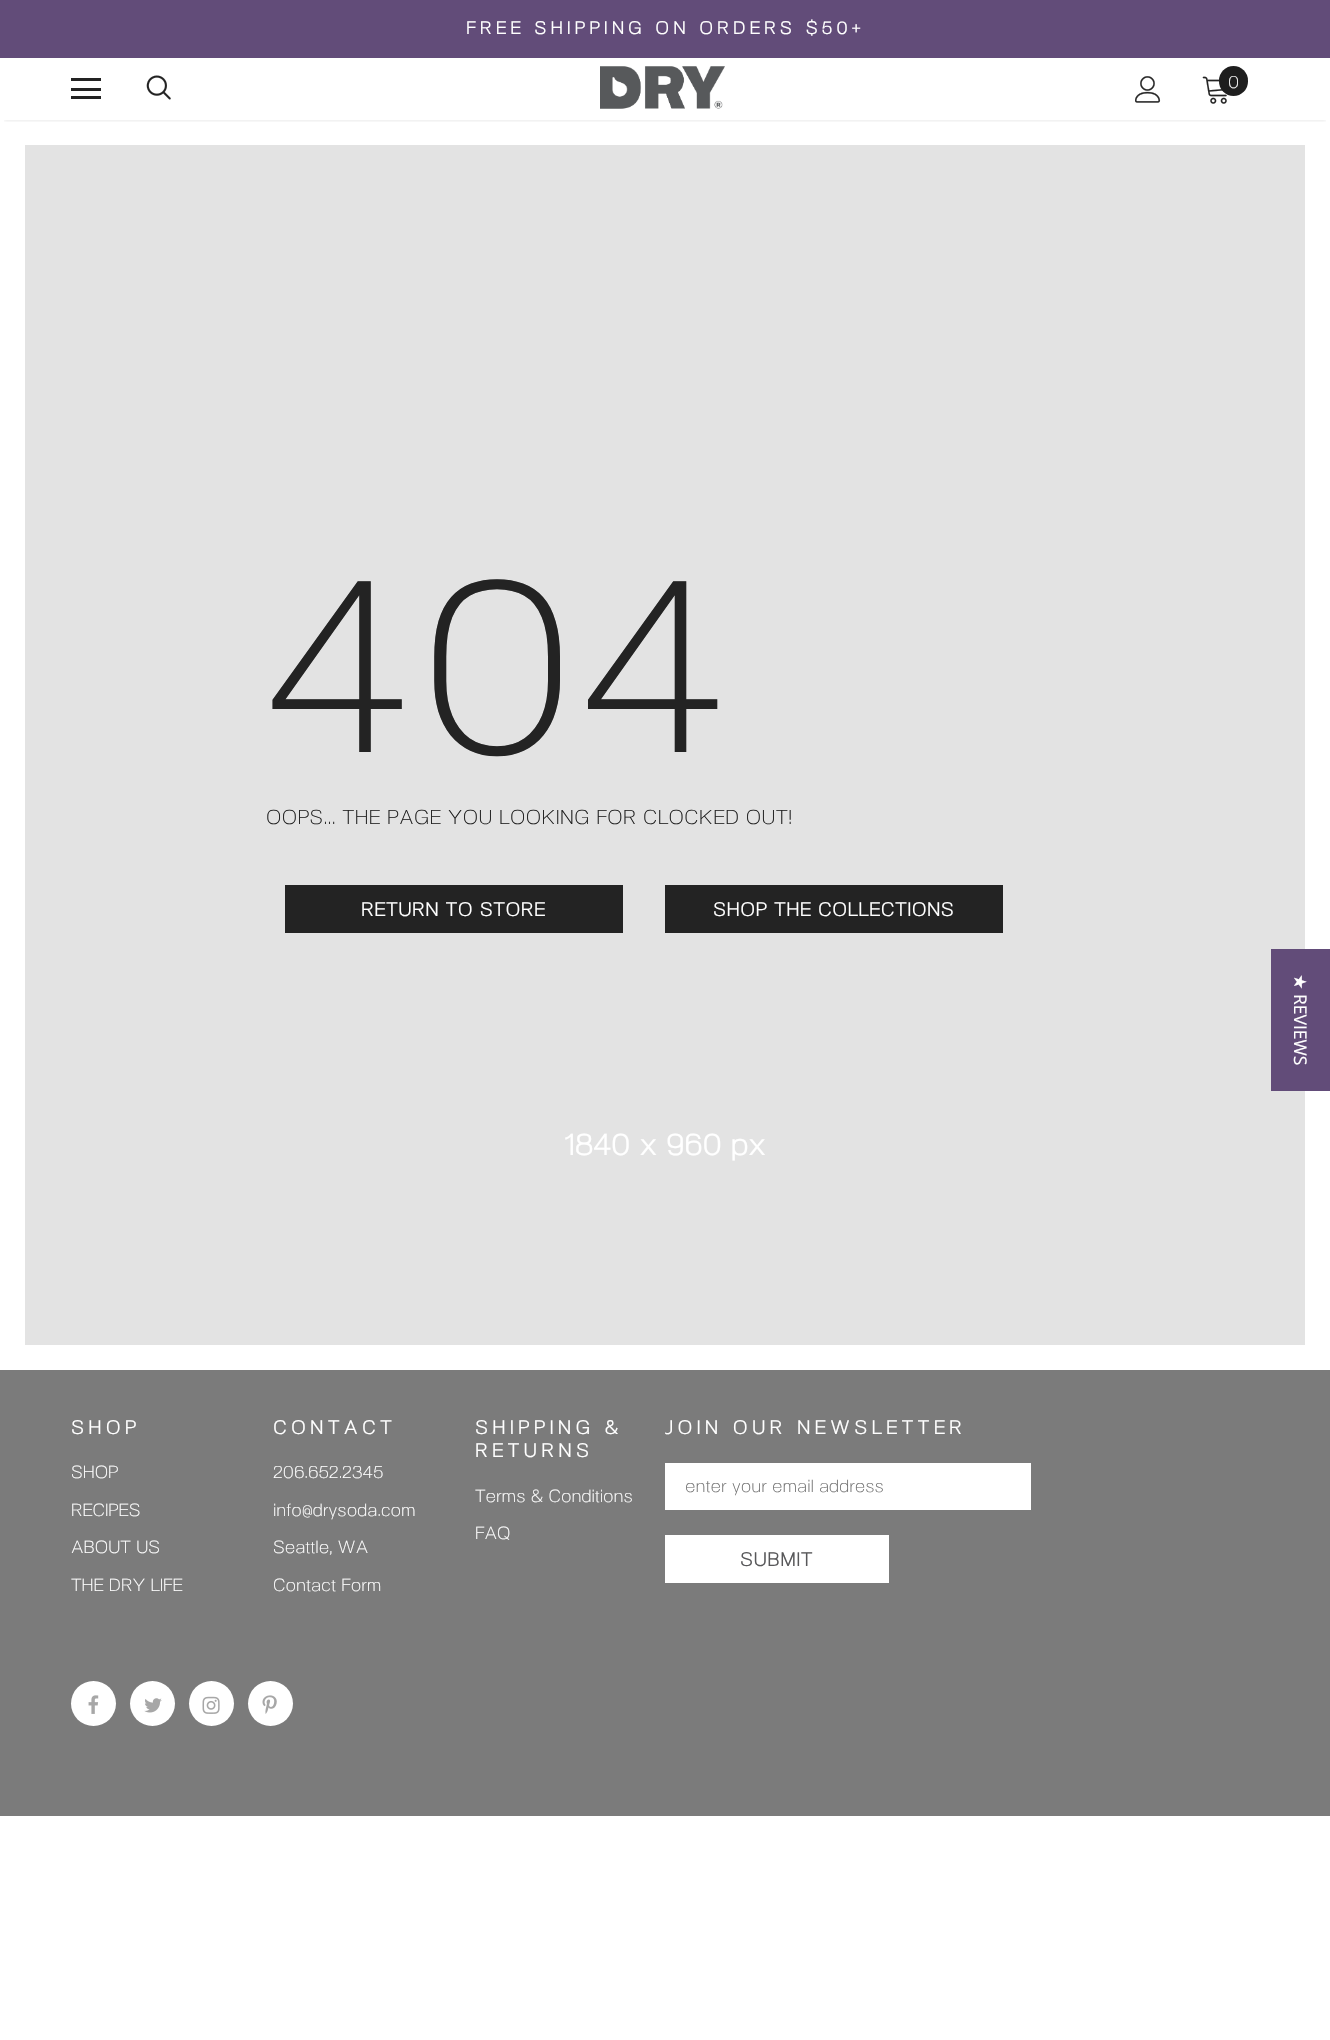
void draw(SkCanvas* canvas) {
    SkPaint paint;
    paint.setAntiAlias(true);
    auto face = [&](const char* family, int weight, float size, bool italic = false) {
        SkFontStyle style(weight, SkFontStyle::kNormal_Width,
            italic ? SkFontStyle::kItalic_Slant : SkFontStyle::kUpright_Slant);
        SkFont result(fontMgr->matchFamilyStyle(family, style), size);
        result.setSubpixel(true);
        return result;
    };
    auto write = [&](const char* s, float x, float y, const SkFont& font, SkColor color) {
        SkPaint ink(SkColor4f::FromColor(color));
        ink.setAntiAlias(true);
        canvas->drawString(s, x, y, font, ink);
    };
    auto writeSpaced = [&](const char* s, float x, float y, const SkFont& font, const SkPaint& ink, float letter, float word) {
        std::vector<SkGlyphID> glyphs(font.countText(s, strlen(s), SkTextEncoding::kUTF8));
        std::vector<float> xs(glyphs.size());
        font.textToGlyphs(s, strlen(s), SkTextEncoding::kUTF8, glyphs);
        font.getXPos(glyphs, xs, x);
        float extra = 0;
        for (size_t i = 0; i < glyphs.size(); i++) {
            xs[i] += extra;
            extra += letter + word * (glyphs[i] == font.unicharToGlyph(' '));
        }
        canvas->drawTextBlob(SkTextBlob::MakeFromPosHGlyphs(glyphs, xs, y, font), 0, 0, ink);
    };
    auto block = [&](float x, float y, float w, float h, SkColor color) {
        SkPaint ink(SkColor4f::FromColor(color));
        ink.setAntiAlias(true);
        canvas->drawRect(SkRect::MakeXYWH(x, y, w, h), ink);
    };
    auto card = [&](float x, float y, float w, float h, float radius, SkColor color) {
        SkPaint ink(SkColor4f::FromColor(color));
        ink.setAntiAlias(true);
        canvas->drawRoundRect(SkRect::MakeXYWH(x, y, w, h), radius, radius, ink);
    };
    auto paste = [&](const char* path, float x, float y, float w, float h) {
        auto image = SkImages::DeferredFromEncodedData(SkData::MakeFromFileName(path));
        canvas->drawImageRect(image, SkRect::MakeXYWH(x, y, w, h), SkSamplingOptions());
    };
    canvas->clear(SK_ColorWHITE);
    block(0, 0, 1330, 58, SkColorSetRGB(98, 76, 121));
    auto kFont1 = face("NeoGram", 700, 17.5f);
    paint.setColor(SK_ColorWHITE);
    writeSpaced("FREE SHIPPING ON ORDERS $50+", 466, 34, kFont1, paint, 4.4f, 0);
    canvas->save();
    canvas->clipRect(SkRect::MakeXYWH(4, 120, 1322, 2));
    paint.setColor(SkColorSetARGB(31, 0, 0, 0));
    paint.setMaskFilter(SkMaskFilter::MakeBlur(kNormal_SkBlurStyle, 2));
    canvas->drawRect(SkRect::MakeXYWH(4, 65, 1322, 55), paint);
    paint.setMaskFilter(nullptr);
    canvas->restore();
    block(71, 78, 30, 3, SkColorSetRGB(35, 35, 35));
    block(71, 88, 30, 3, SkColorSetRGB(35, 35, 35));
    block(71, 96, 30, 3, SkColorSetRGB(35, 35, 35));
    paste("pic1.png", 146, 75, 25, 25);
    paste("pic2.png", 600, 66, 125, 43);
    paste("pic3.png", 1135, 76, 26, 27);
    paste("pic4.png", 1202, 76, 25, 28);
    card(1219, 66, 29, 30, 14.5f, SkColorSetRGB(30, 30, 30));
    auto kFont2 = face("NeoGram", 300, 17.5f);
    write("0", 1228, 88, kFont2, SK_ColorWHITE);
    block(25, 145, 1280, 1200, SkColorSetRGB(227, 227, 227));
    auto kFont3 = face("NeoGram", 300, 250);
    paint.setColor(SkColorSetRGB(35, 35, 35));
    writeSpaced("404", 266, 752, kFont3, paint, 5, 0);
    auto kFont4 = face("NeoGram", 300, 20);
    writeSpaced("OOPS... THE PAGE YOU LOOKING FOR CLOCKED OUT!", 266, 824, kFont4, paint, 0.4f, 0);
    block(285, 885, 338, 48, SkColorSetRGB(35, 35, 35));
    auto kFont5 = face("NeoGram", 700, 18.75f);
    paint.setColor(SK_ColorWHITE);
    writeSpaced("RETURN TO STORE", 361, 916, kFont5, paint, 0.9f, 0);
    block(665, 885, 338, 48, SkColorSetRGB(35, 35, 35));
    writeSpaced("SHOP THE COLLECTIONS", 713, 916, kFont5, paint, 0.9f, 0);
    auto kFont6 = face("NeoGram", 700, 30);
    write("1840 x 960 px", 565, 1155, kFont6, SK_ColorWHITE);
    block(0, 1370, 1330, 446, SkColorSetRGB(123, 123, 123));
    writeSpaced("SHOP", 71, 1434, kFont5, paint, 4.7f, 0);
    write("SHOP", 71, 1478, kFont2, SK_ColorWHITE);
    write("RECIPES", 71, 1516, kFont2, SK_ColorWHITE);
    write("ABOUT US", 71, 1553, kFont2, SK_ColorWHITE);
    write("THE DRY LIFE", 71, 1591, kFont2, SK_ColorWHITE);
    writeSpaced("CONTACT", 273, 1434, kFont5, paint, 4.7f, 0);
    write("206.652.2345", 273, 1478, kFont2, SK_ColorWHITE);
    write("info@drysoda.com", 273, 1516, kFont2, SK_ColorWHITE);
    write("Seattle, WA", 273, 1553, kFont2, SK_ColorWHITE);
    write("Contact Form", 273, 1591, kFont2, SK_ColorWHITE);
    writeSpaced("SHIPPING &", 475, 1434, kFont5, paint, 4.7f, 0);
    writeSpaced("RETURNS", 475, 1457, kFont5, paint, 4.7f, 0);
    write("Terms & Conditions", 475, 1502, kFont2, SK_ColorWHITE);
    write("FAQ", 475, 1539, kFont2, SK_ColorWHITE);
    writeSpaced("JOIN OUR NEWSLETTER", 665, 1434, kFont5, paint, 4.7f, 0);
    block(665, 1463, 366, 47, SK_ColorWHITE);
    write("enter your email address", 685, 1492, kFont2, SkColorSetRGB(113, 113, 113));
    block(665, 1535, 224, 48, SK_ColorWHITE);
    paint.setColor(SkColorSetRGB(88, 88, 90));
    writeSpaced("SUBMIT", 740, 1566, kFont5, paint, 0.9f, 0);
    paint.setColor(SK_ColorWHITE);
    canvas->drawCircle(93.5f, 1703.5f, 22.5f, paint);
    paste("pic5.png", 88, 1695, 11, 19);
    canvas->drawCircle(152.5f, 1703.5f, 22.5f, paint);
    paste("pic6.png", 144, 1698, 18, 15);
    canvas->drawCircle(211.5f, 1703.5f, 22.5f, paint);
    paste("pic7.png", 202, 1696, 18, 18);
    canvas->drawCircle(270.5f, 1703.5f, 22.5f, paint);
    paste("pic8.png", 262, 1695, 15, 19);
    block(1271, 949, 59, 142, SkColorSetRGB(98, 76, 121));
    auto kFont7 = face("DejaVu Sans", 400, 17.5f);
    canvas->save();
    canvas->rotate(90, 1294, 974);
    write("★", 1294, 974, kFont7, SK_ColorWHITE);
    canvas->restore();
    auto kFont8 = face("Open Sans", 400, 17.5f);
    canvas->save();
    canvas->rotate(90, 1294, 994);
    write("REVIEWS", 1294, 994, kFont8, SK_ColorWHITE);
    canvas->restore();
}
